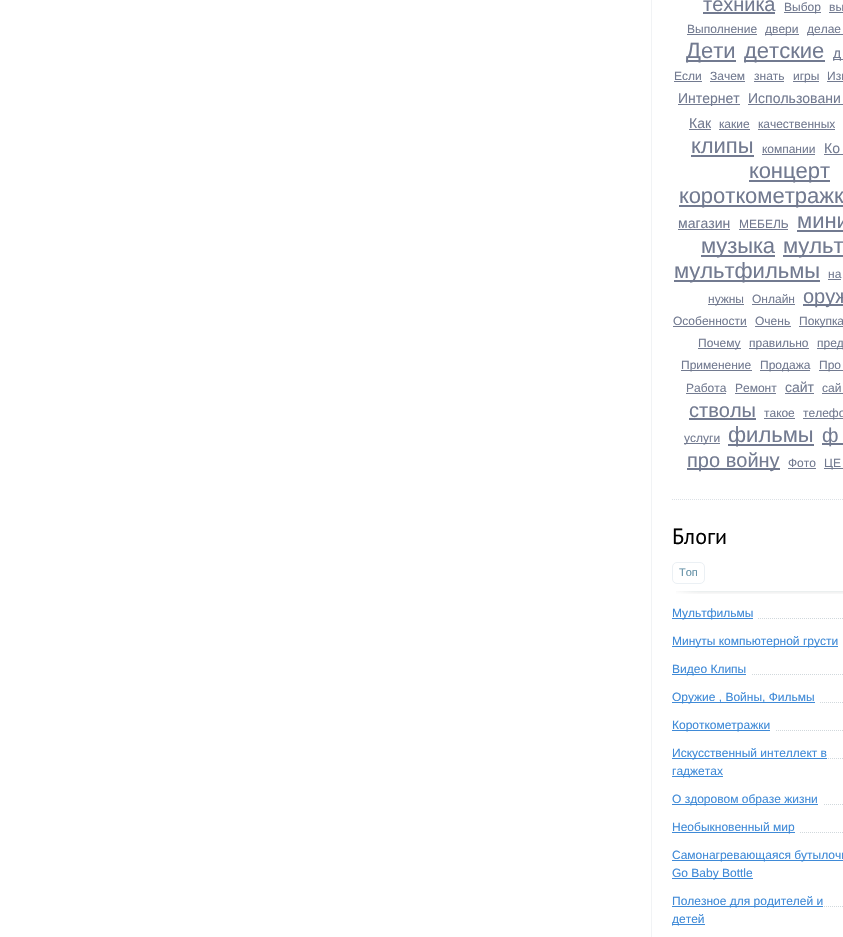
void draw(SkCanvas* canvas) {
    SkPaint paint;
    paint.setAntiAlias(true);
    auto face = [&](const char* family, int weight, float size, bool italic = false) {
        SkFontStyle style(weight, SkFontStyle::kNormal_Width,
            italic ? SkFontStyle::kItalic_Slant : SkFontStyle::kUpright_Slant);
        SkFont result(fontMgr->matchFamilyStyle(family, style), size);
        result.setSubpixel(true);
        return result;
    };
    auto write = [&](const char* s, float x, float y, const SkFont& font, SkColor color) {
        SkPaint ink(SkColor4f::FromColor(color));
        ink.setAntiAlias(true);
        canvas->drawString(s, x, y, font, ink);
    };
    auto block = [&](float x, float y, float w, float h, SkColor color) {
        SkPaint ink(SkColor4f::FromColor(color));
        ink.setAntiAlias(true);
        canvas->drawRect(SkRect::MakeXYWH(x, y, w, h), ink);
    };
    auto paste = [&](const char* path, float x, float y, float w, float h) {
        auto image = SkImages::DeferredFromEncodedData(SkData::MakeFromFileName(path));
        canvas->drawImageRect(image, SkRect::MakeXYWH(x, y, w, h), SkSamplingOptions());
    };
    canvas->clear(SK_ColorWHITE);
    block(651, 0, 1, 937, SkColorSetRGB(241, 243, 245));
    paint.setStyle(SkPaint::kStroke_Style);
    paint.setStrokeWidth(1);
    paint.setColor(SkColorSetRGB(220, 225, 230));
    paint.setPathEffect(SkDashPathEffect::Make({{1, 1}}, 0));
    canvas->drawPath(SkPathBuilder().moveTo(672, 499.5f).lineTo(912, 499.5f).detach(), paint);
    paint.setPathEffect(nullptr);
    auto kFont1 = face("Liberation Sans", 400, 20);
    write("техника", 703, 11, kFont1, SkColorSetRGB(114, 122, 144));
    block(703, 12, 72, 2, SkColorSetRGB(114, 122, 144));
    block(784, 12, 37, 1, SkColorSetRGB(114, 122, 144));
    auto kFont2 = face("Liberation Sans", 400, 12);
    write("Выбор", 784, 11, kFont2, SkColorSetRGB(114, 122, 144));
    write("вы", 829, 11, kFont2, SkColorSetRGB(114, 122, 144));
    block(829, 12, 14, 1, SkColorSetRGB(114, 122, 144));
    write("Выполнение", 687, 33, kFont2, SkColorSetRGB(114, 122, 144));
    block(687, 34, 70, 1, SkColorSetRGB(114, 122, 144));
    block(765, 34, 34, 1, SkColorSetRGB(114, 122, 144));
    write("двери", 765, 33, kFont2, SkColorSetRGB(114, 122, 144));
    block(807, 34, 36, 1, SkColorSetRGB(114, 122, 144));
    write("делае", 807, 33, kFont2, SkColorSetRGB(114, 122, 144));
    block(686, 60, 50, 2, SkColorSetRGB(114, 122, 144));
    auto kFont3 = face("Liberation Sans", 400, 22);
    write("Дети", 686, 58, kFont3, SkColorSetRGB(114, 122, 144));
    block(744, 60, 81, 2, SkColorSetRGB(114, 122, 144));
    write("детские", 744, 58, kFont3, SkColorSetRGB(114, 122, 144));
    block(833, 59, 10, 1, SkColorSetRGB(114, 122, 144));
    auto kFont4 = face("Liberation Sans", 400, 14);
    write("д", 833, 58, kFont4, SkColorSetRGB(114, 122, 144));
    write("Если", 674, 80, kFont2, SkColorSetRGB(114, 122, 144));
    block(674, 81, 28, 1, SkColorSetRGB(114, 122, 144));
    write("Зачем", 710, 80, kFont2, SkColorSetRGB(114, 122, 144));
    block(710, 81, 35, 1, SkColorSetRGB(114, 122, 144));
    write("знать", 754, 80, kFont2, SkColorSetRGB(114, 122, 144));
    block(754, 81, 30, 1, SkColorSetRGB(114, 122, 144));
    block(793, 81, 26, 1, SkColorSetRGB(114, 122, 144));
    write("игры", 793, 80, kFont2, SkColorSetRGB(114, 122, 144));
    write("Изг", 827, 80, kFont2, SkColorSetRGB(114, 122, 144));
    block(827, 81, 16, 1, SkColorSetRGB(114, 122, 144));
    block(678, 104, 62, 1, SkColorSetRGB(114, 122, 144));
    write("Интернет", 678, 103, kFont4, SkColorSetRGB(114, 122, 144));
    write("Использовани", 748, 103, kFont4, SkColorSetRGB(114, 122, 144));
    block(748, 104, 95, 1, SkColorSetRGB(114, 122, 144));
    write("Как", 689, 128, kFont4, SkColorSetRGB(114, 122, 144));
    block(689, 129, 22, 1, SkColorSetRGB(114, 122, 144));
    write("какие", 719, 128, kFont2, SkColorSetRGB(114, 122, 144));
    block(719, 129, 31, 1, SkColorSetRGB(114, 122, 144));
    write("качественных", 758, 128, kFont2, SkColorSetRGB(114, 122, 144));
    block(758, 129, 77, 1, SkColorSetRGB(114, 122, 144));
    write("клипы", 691, 153, kFont3, SkColorSetRGB(114, 122, 144));
    block(691, 155, 63, 2, SkColorSetRGB(114, 122, 144));
    write("компании", 762, 153, kFont2, SkColorSetRGB(114, 122, 144));
    block(762, 154, 53, 1, SkColorSetRGB(114, 122, 144));
    write("Ко", 824, 153, kFont4, SkColorSetRGB(114, 122, 144));
    block(824, 154, 19, 1, SkColorSetRGB(114, 122, 144));
    block(749, 180, 81, 2, SkColorSetRGB(114, 122, 144));
    write("концерт", 749, 178, kFont3, SkColorSetRGB(114, 122, 144));
    block(679, 205, 164, 2, SkColorSetRGB(114, 122, 144));
    write("короткометражк", 679, 203, kFont3, SkColorSetRGB(114, 122, 144));
    write("магазин", 678, 228, kFont4, SkColorSetRGB(114, 122, 144));
    block(678, 229, 52, 1, SkColorSetRGB(114, 122, 144));
    write("МЕБЕЛЬ", 739, 228, kFont2, SkColorSetRGB(114, 122, 144));
    block(739, 229, 49, 1, SkColorSetRGB(114, 122, 144));
    write("мини", 797, 228, kFont3, SkColorSetRGB(114, 122, 144));
    block(797, 230, 46, 2, SkColorSetRGB(114, 122, 144));
    block(701, 255, 74, 2, SkColorSetRGB(114, 122, 144));
    write("музыка", 701, 253, kFont3, SkColorSetRGB(114, 122, 144));
    block(783, 255, 60, 2, SkColorSetRGB(114, 122, 144));
    write("мульт", 783, 253, kFont3, SkColorSetRGB(114, 122, 144));
    block(674, 280, 146, 2, SkColorSetRGB(114, 122, 144));
    write("мультфильмы", 674, 278, kFont3, SkColorSetRGB(114, 122, 144));
    write("на", 828, 278, kFont2, SkColorSetRGB(114, 122, 144));
    block(828, 279, 13, 1, SkColorSetRGB(114, 122, 144));
    block(708, 304, 36, 1, SkColorSetRGB(114, 122, 144));
    write("нужны", 708, 303, kFont2, SkColorSetRGB(114, 122, 144));
    write("Онлайн", 752, 303, kFont2, SkColorSetRGB(114, 122, 144));
    block(752, 304, 43, 1, SkColorSetRGB(114, 122, 144));
    block(803, 304, 40, 2, SkColorSetRGB(114, 122, 144));
    write("оруж", 803, 303, kFont1, SkColorSetRGB(114, 122, 144));
    write("Особенности", 673, 325, kFont2, SkColorSetRGB(114, 122, 144));
    block(673, 326, 74, 1, SkColorSetRGB(114, 122, 144));
    write("Очень", 755, 325, kFont2, SkColorSetRGB(114, 122, 144));
    block(755, 326, 36, 1, SkColorSetRGB(114, 122, 144));
    block(799, 326, 44, 1, SkColorSetRGB(114, 122, 144));
    write("Покупка", 799, 325, kFont2, SkColorSetRGB(114, 122, 144));
    block(698, 348, 43, 1, SkColorSetRGB(114, 122, 144));
    write("Почему", 698, 347, kFont2, SkColorSetRGB(114, 122, 144));
    block(749, 348, 60, 1, SkColorSetRGB(114, 122, 144));
    write("правильно", 749, 347, kFont2, SkColorSetRGB(114, 122, 144));
    block(817, 348, 26, 1, SkColorSetRGB(114, 122, 144));
    write("пред", 817, 347, kFont2, SkColorSetRGB(114, 122, 144));
    block(681, 370, 71, 1, SkColorSetRGB(114, 122, 144));
    write("Применение", 681, 369, kFont2, SkColorSetRGB(114, 122, 144));
    block(760, 370, 50, 1, SkColorSetRGB(114, 122, 144));
    write("Продажа", 760, 369, kFont2, SkColorSetRGB(114, 122, 144));
    block(819, 370, 24, 1, SkColorSetRGB(114, 122, 144));
    write("Про", 819, 369, kFont2, SkColorSetRGB(114, 122, 144));
    write("Работа", 686, 392, kFont2, SkColorSetRGB(114, 122, 144));
    block(686, 393, 40, 1, SkColorSetRGB(114, 122, 144));
    write("Ремонт", 735, 392, kFont2, SkColorSetRGB(114, 122, 144));
    block(735, 393, 41, 1, SkColorSetRGB(114, 122, 144));
    write("сайт", 785, 392, kFont4, SkColorSetRGB(114, 122, 144));
    block(785, 393, 29, 1, SkColorSetRGB(114, 122, 144));
    write("сай", 822, 392, kFont2, SkColorSetRGB(114, 122, 144));
    block(822, 393, 21, 1, SkColorSetRGB(114, 122, 144));
    write("стволы", 689, 417, kFont1, SkColorSetRGB(114, 122, 144));
    block(689, 418, 67, 2, SkColorSetRGB(114, 122, 144));
    write("такое", 764, 417, kFont2, SkColorSetRGB(114, 122, 144));
    block(764, 418, 31, 1, SkColorSetRGB(114, 122, 144));
    block(803, 418, 40, 1, SkColorSetRGB(114, 122, 144));
    write("телефо", 803, 417, kFont2, SkColorSetRGB(114, 122, 144));
    block(684, 443, 36, 1, SkColorSetRGB(114, 122, 144));
    write("услуги", 684, 442, kFont2, SkColorSetRGB(114, 122, 144));
    block(728, 444, 86, 2, SkColorSetRGB(114, 122, 144));
    write("фильмы", 728, 442, kFont3, SkColorSetRGB(114, 122, 144));
    block(822, 443, 21, 2, SkColorSetRGB(114, 122, 144));
    write("ф", 822, 442, kFont1, SkColorSetRGB(114, 122, 144));
    block(687, 468, 93, 2, SkColorSetRGB(114, 122, 144));
    write("про войну", 687, 467, kFont1, SkColorSetRGB(114, 122, 144));
    write("Фото", 788, 467, kFont2, SkColorSetRGB(114, 122, 144));
    block(788, 468, 28, 1, SkColorSetRGB(114, 122, 144));
    block(824, 468, 19, 1, SkColorSetRGB(114, 122, 144));
    write("ЦЕ", 824, 467, kFont2, SkColorSetRGB(114, 122, 144));
    paste("pic1.png", 676, 591, 167, 3);
    auto kFont5 = face("PT Sans", 400, 22);
    write("Блоги", 672, 544, kFont5, SK_ColorBLACK);
    paint.setColor(SkColorSetRGB(235, 240, 244));
    canvas->drawRoundRect(SkRect::MakeXYWH(672.5f, 562.5f, 32, 21), 4.5f, 4.5f, paint);
    auto kFont6 = face("Liberation Sans", 400, 11);
    write("Топ", 679, 576, kFont6, SkColorSetRGB(98, 143, 165));
    paste("pic2.png", 758, 618, 85, 1);
    block(672, 618, 81, 1, SkColorSetRGB(63, 138, 215));
    write("Мультфильмы", 672, 617, kFont2, SkColorSetRGB(63, 138, 215));
    block(672, 646, 166, 1, SkColorSetRGB(63, 138, 215));
    write("Минуты компьютерной грусти", 672, 645, kFont2, SkColorSetRGB(63, 138, 215));
    paste("pic3.png", 751, 674, 92, 1);
    block(672, 674, 74, 1, SkColorSetRGB(63, 138, 215));
    write("Видео Клипы", 672, 673, kFont2, SkColorSetRGB(63, 138, 215));
    paste("pic4.png", 820, 702, 23, 1);
    block(672, 702, 143, 1, SkColorSetRGB(63, 138, 215));
    write("Оружие , Войны, Фильмы", 672, 701, kFont2, SkColorSetRGB(63, 138, 215));
    paste("pic5.png", 775, 730, 68, 1);
    block(672, 730, 98, 1, SkColorSetRGB(63, 138, 215));
    write("Короткометражки", 672, 729, kFont2, SkColorSetRGB(63, 138, 215));
    paste("pic6.png", 827, 758, 16, 1);
    block(672, 758, 155, 1, SkColorSetRGB(63, 138, 215));
    write("Искусственный интеллект в", 672, 757, kFont2, SkColorSetRGB(63, 138, 215));
    block(672, 776, 51, 1, SkColorSetRGB(63, 138, 215));
    write("гаджетах", 672, 775, kFont2, SkColorSetRGB(63, 138, 215));
    paste("pic7.png", 823, 804, 20, 1);
    block(672, 804, 146, 1, SkColorSetRGB(63, 138, 215));
    write("О здоровом образе жизни", 672, 803, kFont2, SkColorSetRGB(63, 138, 215));
    paste("pic8.png", 800, 832, 43, 1);
    block(672, 832, 123, 1, SkColorSetRGB(63, 138, 215));
    write("Необыкновенный мир", 672, 831, kFont2, SkColorSetRGB(63, 138, 215));
    block(672, 860, 171, 1, SkColorSetRGB(63, 138, 215));
    write("Самонагревающаяся бутылочк", 672, 859, kFont2, SkColorSetRGB(63, 138, 215));
    block(672, 878, 81, 1, SkColorSetRGB(63, 138, 215));
    write("Go Baby Bottle", 672, 877, kFont2, SkColorSetRGB(63, 138, 215));
    paste("pic7.png", 823, 906, 20, 1);
    block(672, 906, 151, 1, SkColorSetRGB(63, 138, 215));
    write("Полезное для родителей и", 672, 905, kFont2, SkColorSetRGB(63, 138, 215));
    block(672, 924, 33, 1, SkColorSetRGB(63, 138, 215));
    write("детей", 672, 923, kFont2, SkColorSetRGB(63, 138, 215));
}
